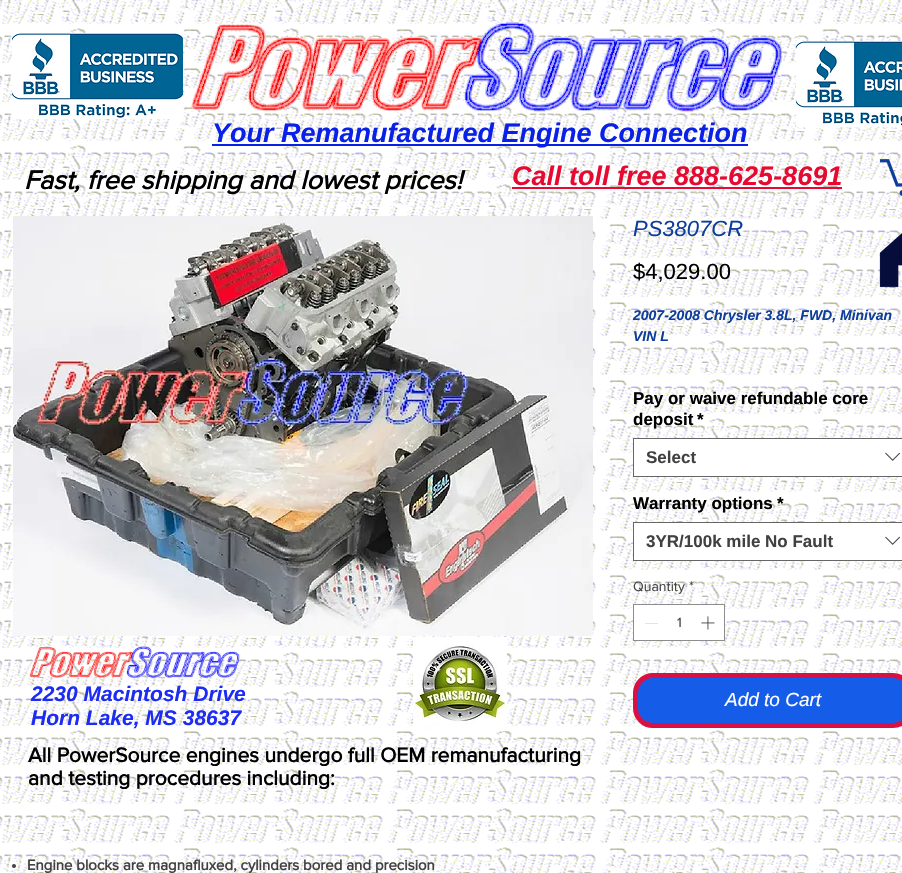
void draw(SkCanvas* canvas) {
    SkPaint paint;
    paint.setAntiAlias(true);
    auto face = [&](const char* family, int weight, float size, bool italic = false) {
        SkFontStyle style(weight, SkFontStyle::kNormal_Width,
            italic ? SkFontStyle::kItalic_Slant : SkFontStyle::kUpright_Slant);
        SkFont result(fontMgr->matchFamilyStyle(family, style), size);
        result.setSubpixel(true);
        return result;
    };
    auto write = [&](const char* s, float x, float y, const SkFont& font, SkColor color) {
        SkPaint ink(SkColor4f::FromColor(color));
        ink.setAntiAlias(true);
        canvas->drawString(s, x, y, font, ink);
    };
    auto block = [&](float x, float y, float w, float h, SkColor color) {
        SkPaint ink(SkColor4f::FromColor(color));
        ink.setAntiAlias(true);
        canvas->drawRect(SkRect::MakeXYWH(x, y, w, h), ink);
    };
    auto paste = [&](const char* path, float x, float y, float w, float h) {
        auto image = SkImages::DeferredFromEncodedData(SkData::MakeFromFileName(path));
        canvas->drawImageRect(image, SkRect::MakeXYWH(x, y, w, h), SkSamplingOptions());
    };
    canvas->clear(SK_ColorWHITE);
    paste("pic1.png", 0, 0, 902, 873);
    paste("pic2.png", 12, 33, 171, 86);
    paste("pic3.png", 190, 22, 592, 90);
    paste("pic4.png", 796, 41, 106, 86);
    block(212, 144, 536, 2, SkColorSetRGB(9, 32, 232));
    auto kFont1 = face("Liberation Sans", 700, 27, true);
    write("Your Remanufactured Engine Connection", 212, 142, kFont1, SkColorSetRGB(9, 32, 232));
    write("Call toll free 888-625-8691", 512, 185, kFont1, SkColorSetRGB(230, 9, 49));
    block(512, 187, 330, 2, SkColorSetRGB(230, 9, 49));
    paste("pic5.png", 880, 159, 22, 37);
    auto kFont2 = face("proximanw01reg", 700, 27, true);
    write("Fast, free shipping and lowest prices!", 24, 189, kFont2, SK_ColorBLACK);
    paste("pic6.png", 13, 216, 580, 420);
    auto kFont3 = face("Liberation Sans", 400, 22, true);
    write("PS3807CR", 633, 236, kFont3, SkColorSetRGB(14, 62, 155));
    auto kFont4 = face("Liberation Sans", 400, 22);
    write("$4,029.00", 633, 279, kFont4, SK_ColorBLACK);
    auto kFont5 = face("Liberation Sans", 700, 14, true);
    write("2007-2008 Chrysler 3.8L, FWD, Minivan", 633, 320, kFont5, SkColorSetRGB(14, 62, 155));
    write("VIN L", 633, 341, kFont5, SkColorSetRGB(14, 62, 155));
    auto kFont6 = face("Liberation Sans", 700, 17);
    write("Pay or waive refundable core", 633, 404, kFont6, SK_ColorBLACK);
    write("deposit", 633, 425, kFont6, SK_ColorBLACK);
    write("*", 697, 425, kFont6, SK_ColorBLACK);
    paint.setColor(SK_ColorWHITE);
    canvas->drawRect(SkRect::MakeXYWH(633.5f, 438.5f, 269, 38), paint);
    paint.setStyle(SkPaint::kStroke_Style);
    paint.setStrokeWidth(1);
    paint.setColor(SkColorSetRGB(102, 102, 102));
    canvas->drawRect(SkRect::MakeXYWH(633.5f, 438.5f, 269, 38), paint);
    write("Select", 646, 463, kFont6, SkColorSetRGB(65, 65, 65));
    paste("pic7.png", 885, 452, 16, 9);
    write("Warranty options", 633, 509, kFont6, SK_ColorBLACK);
    write("*", 777, 509, kFont6, SK_ColorBLACK);
    paint.setStyle(SkPaint::kFill_Style);
    paint.setColor(SK_ColorWHITE);
    canvas->drawRect(SkRect::MakeXYWH(633.5f, 522.5f, 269, 38), paint);
    paint.setStyle(SkPaint::kStroke_Style);
    paint.setColor(SkColorSetRGB(102, 102, 102));
    canvas->drawRect(SkRect::MakeXYWH(633.5f, 522.5f, 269, 38), paint);
    write("3YR/100k mile No Fault", 646, 547, kFont6, SkColorSetRGB(65, 65, 65));
    paste("pic7.png", 885, 536, 16, 9);
    auto kFont7 = face("proximanw01reg", 400, 14);
    write("Quantity", 633, 591, kFont7, SkColorSetRGB(65, 65, 65));
    write("*", 689, 591, kFont7, SkColorSetRGB(65, 65, 65));
    paint.setStyle(SkPaint::kFill_Style);
    paint.setColor(SK_ColorWHITE);
    canvas->drawRect(SkRect::MakeXYWH(633.5f, 604.5f, 91, 36), paint);
    paint.setStyle(SkPaint::kStroke_Style);
    paint.setColor(SkColorSetRGB(141, 141, 141));
    canvas->drawRect(SkRect::MakeXYWH(633.5f, 604.5f, 91, 36), paint);
    block(645, 623, 13, 1, SkColorSetRGB(227, 227, 227));
    write("1", 677, 627, kFont7, SkColorSetRGB(65, 65, 65));
    paste("pic8.png", 701, 616, 14, 14);
    paint.setStyle(SkPaint::kFill_Style);
    paint.setColor(SkColorSetRGB(21, 93, 233));
    canvas->drawRoundRect(SkRect::MakeXYWH(635.5f, 675.5f, 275, 50), 17.5f, 17.5f, paint);
    paint.setStyle(SkPaint::kStroke_Style);
    paint.setStrokeWidth(5);
    paint.setColor(SkColorSetRGB(215, 17, 67));
    canvas->drawRoundRect(SkRect::MakeXYWH(635.5f, 675.5f, 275, 50), 17.5f, 17.5f, paint);
    auto kFont8 = face("Liberation Sans", 400, 19, true);
    write("Add to Cart", 725, 706, kFont8, SK_ColorWHITE);
    paste("pic9.png", 879, 233, 23, 55);
    paste("pic10.png", 29, 646, 211, 32);
    paste("pic11.png", 413, 637, 94, 94);
    auto kFont9 = face("Liberation Sans", 700, 21, true);
    write("2230 Macintosh Drive", 31, 701, kFont9, SkColorSetRGB(29, 44, 243));
    write("Horn Lake, MS 38637", 31, 725, kFont9, SkColorSetRGB(29, 44, 243));
    auto kFont10 = face("proximanw01reg", 700, 21);
    write("All PowerSource engines undergo full OEM remanufacturing", 28, 762, kFont10, SK_ColorBLACK);
    write("and testing procedures including:", 28, 785, kFont10, SK_ColorBLACK);
    paint.setStyle(SkPaint::kFill_Style);
    paint.setColor(SkColorSetRGB(65, 65, 65));
    canvas->drawCircle(14, 866, 2, paint);
    auto kFont11 = face("proximanw01reg", 700, 15);
    write("Engine blocks are magnafluxed, cylinders bored and precision", 27, 870, kFont11, SkColorSetRGB(65, 65, 65));
}
